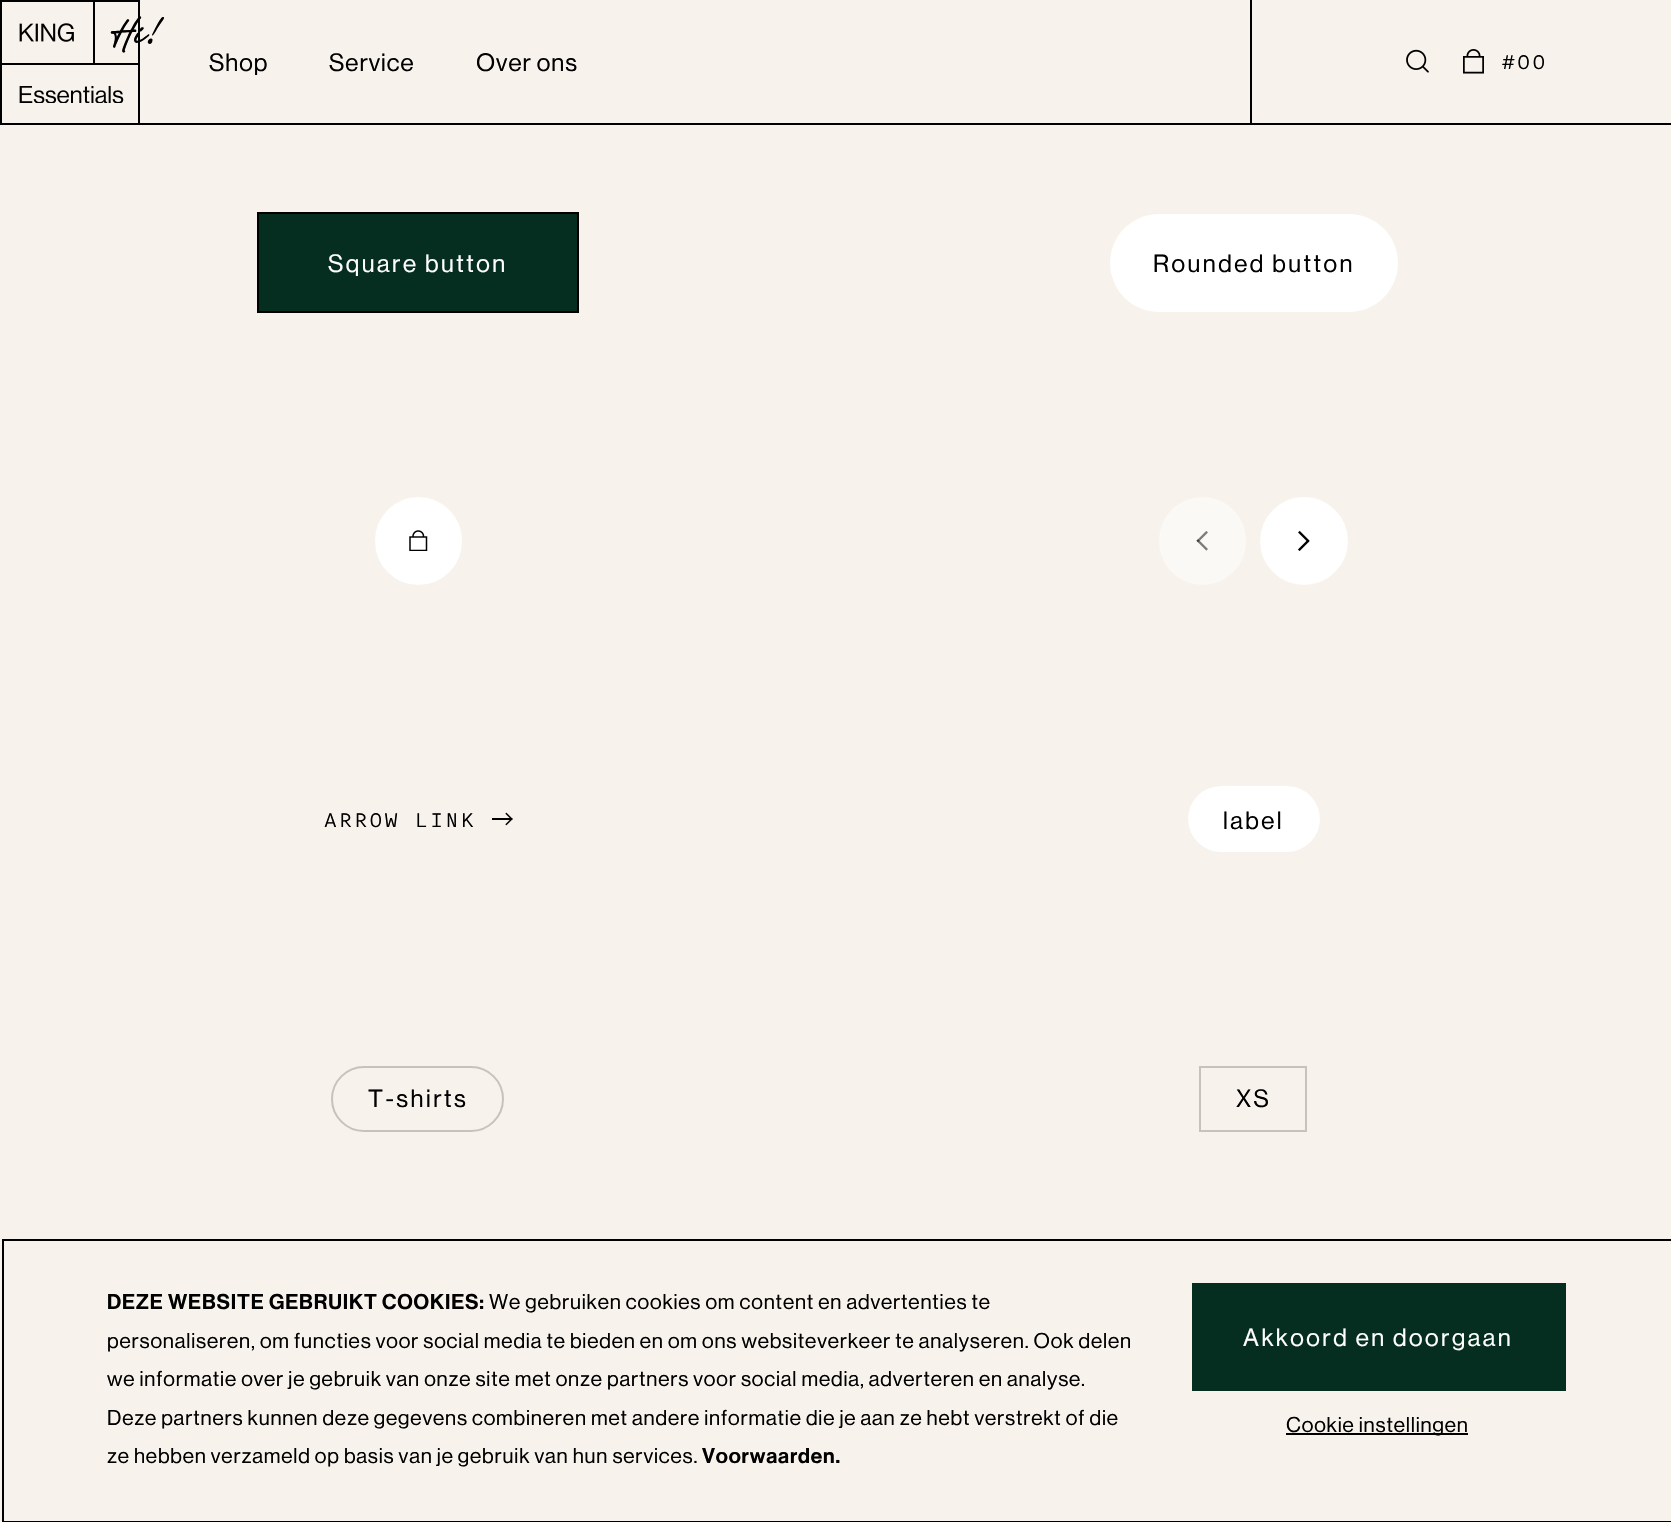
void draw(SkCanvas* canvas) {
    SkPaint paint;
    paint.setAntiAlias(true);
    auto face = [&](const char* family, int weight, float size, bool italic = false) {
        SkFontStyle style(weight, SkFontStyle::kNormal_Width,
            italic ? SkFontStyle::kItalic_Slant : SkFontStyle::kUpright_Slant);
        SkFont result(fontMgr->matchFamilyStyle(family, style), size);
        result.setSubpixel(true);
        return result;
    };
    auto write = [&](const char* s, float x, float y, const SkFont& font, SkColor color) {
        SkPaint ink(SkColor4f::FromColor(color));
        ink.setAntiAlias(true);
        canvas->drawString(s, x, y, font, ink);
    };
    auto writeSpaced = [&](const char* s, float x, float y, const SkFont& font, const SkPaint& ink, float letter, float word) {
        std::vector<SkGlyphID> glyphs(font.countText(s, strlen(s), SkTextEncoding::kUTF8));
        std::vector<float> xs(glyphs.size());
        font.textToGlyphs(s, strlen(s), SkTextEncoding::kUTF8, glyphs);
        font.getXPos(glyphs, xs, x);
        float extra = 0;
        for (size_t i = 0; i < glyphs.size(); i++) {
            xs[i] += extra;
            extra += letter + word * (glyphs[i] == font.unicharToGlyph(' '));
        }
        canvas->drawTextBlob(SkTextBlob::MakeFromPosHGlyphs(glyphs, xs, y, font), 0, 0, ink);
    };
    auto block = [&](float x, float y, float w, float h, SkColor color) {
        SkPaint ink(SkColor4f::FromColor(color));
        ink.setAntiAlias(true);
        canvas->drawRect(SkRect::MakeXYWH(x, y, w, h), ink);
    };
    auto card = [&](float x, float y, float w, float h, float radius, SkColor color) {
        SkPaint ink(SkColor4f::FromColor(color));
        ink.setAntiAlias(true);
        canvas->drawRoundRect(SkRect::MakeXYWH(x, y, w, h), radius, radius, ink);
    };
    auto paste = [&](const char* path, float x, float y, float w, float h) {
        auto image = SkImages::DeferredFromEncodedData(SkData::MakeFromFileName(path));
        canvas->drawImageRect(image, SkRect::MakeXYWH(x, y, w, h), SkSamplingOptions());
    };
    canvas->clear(SkColorSetRGB(247, 242, 235));
    block(0, 123, 1671, 2, SK_ColorBLACK);
    block(1250, 0, 2, 124, SK_ColorBLACK);
    block(0, 0, 140, 2, SK_ColorBLACK);
    block(138, 0, 2, 124, SK_ColorBLACK);
    block(0, 0, 2, 124, SK_ColorBLACK);
    block(2, 63, 136, 2, SK_ColorBLACK);
    paste("pic1.png", 19, 23, 55, 19);
    block(93, 2, 2, 61, SK_ColorBLACK);
    auto kFont1 = face("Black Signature", 900, 33, true);
    write("Hi!", 111, 47, kFont1, SK_ColorBLACK);
    paste("pic2.png", 19, 86, 105, 17);
    auto kFont2 = face("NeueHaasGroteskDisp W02", 400, 24.5f);
    paint.setColor(SK_ColorBLACK);
    writeSpaced("Shop", 209, 71, kFont2, paint, 1, 0);
    writeSpaced("Service", 329, 71, kFont2, paint, 1, 0);
    writeSpaced("Over ons", 476, 71, kFont2, paint, 1, 0);
    paste("pic3.png", 1406, 49, 23, 24);
    paste("pic4.png", 1463, 49, 21, 25);
    auto kFont3 = face("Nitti", 300, 24.5f);
    writeSpaced("#00", 1501, 69, kFont3, paint, 0.5f, 0);
    paint.setColor(SkColorSetRGB(5, 46, 32));
    canvas->drawRect(SkRect::MakeXYWH(258, 213, 320, 99), paint);
    paint.setStyle(SkPaint::kStroke_Style);
    paint.setStrokeWidth(2);
    paint.setColor(SK_ColorBLACK);
    canvas->drawRect(SkRect::MakeXYWH(258, 213, 320, 99), paint);
    paint.setStyle(SkPaint::kFill_Style);
    paint.setColor(SK_ColorWHITE);
    writeSpaced("Square button", 328, 272, kFont2, paint, 2.5f, 0);
    card(1110, 214, 288, 98, 49, SK_ColorWHITE);
    paint.setColor(SK_ColorBLACK);
    writeSpaced("Rounded button", 1153, 272, kFont2, paint, 2.5f, 0);
    paint.setColor(SK_ColorWHITE);
    canvas->drawRoundRect(SkRect::MakeXYWH(376, 498, 85, 86), 42.5f, 42.5f, paint);
    paint.setStyle(SkPaint::kStroke_Style);
    canvas->drawRoundRect(SkRect::MakeXYWH(376, 498, 85, 86), 42.5f, 42.5f, paint);
    paste("pic5.png", 409, 530, 19, 21);
    card(1159, 497, 87, 88, 43.5f, SkColorSetRGB(251, 249, 245));
    paste("pic6.png", 1196, 531, 12, 20);
    paint.setStyle(SkPaint::kFill_Style);
    canvas->drawCircle(1304, 541, 43, paint);
    paint.setStyle(SkPaint::kStroke_Style);
    canvas->drawCircle(1304, 541, 43, paint);
    paste("pic7.png", 1298, 530, 12, 21);
    paint.setStyle(SkPaint::kFill_Style);
    paint.setColor(SK_ColorBLACK);
    writeSpaced("ARROW LINK", 323, 827, kFont3, paint, 0.5f, 0);
    paste("pic8.png", 492, 812, 21, 14);
    card(1188, 786, 132, 66, 33, SK_ColorWHITE);
    writeSpaced("label", 1223, 829, kFont2, paint, 2.5f, 0);
    paint.setStyle(SkPaint::kStroke_Style);
    paint.setColor(SkColorSetRGB(198, 194, 188));
    canvas->drawRoundRect(SkRect::MakeXYWH(332, 1067, 171, 64), 32, 32, paint);
    paint.setStyle(SkPaint::kFill_Style);
    paint.setColor(SK_ColorBLACK);
    writeSpaced("T-shirts", 368, 1107, kFont2, paint, 2.5f, 0);
    paint.setStyle(SkPaint::kStroke_Style);
    paint.setColor(SkColorSetRGB(198, 194, 188));
    canvas->drawRect(SkRect::MakeXYWH(1200, 1067, 106, 64), paint);
    paint.setStyle(SkPaint::kFill_Style);
    paint.setColor(SK_ColorBLACK);
    writeSpaced("XS", 1236, 1107, kFont2, paint, 2.5f, 0);
    paint.setStyle(SkPaint::kStroke_Style);
    canvas->drawRect(SkRect::MakeXYWH(3, 1240, 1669, 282), paint);
    auto kFont4 = face("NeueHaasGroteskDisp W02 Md", 500, 21);
    paint.setStyle(SkPaint::kFill_Style);
    writeSpaced("DEZE WEBSITE GEBRUIKT COOKIES:", 107, 1309, kFont4, paint, 0.84f, 0);
    auto kFont5 = face("NeueHaasGroteskDisp W02", 400, 21);
    writeSpaced("We gebruiken cookies om content en advertenties te", 489, 1309, kFont5, paint, 0.84f, 0);
    writeSpaced("personaliseren, om functies voor social media te bieden en om ons websiteverkeer te analyseren. Ook delen", 107, 1348, kFont5, paint, 0.84f, 0);
    writeSpaced("we informatie over je gebruik van onze site met onze partners voor social media, adverteren en analyse.", 107, 1386, kFont5, paint, 0.84f, 0);
    writeSpaced("Deze partners kunnen deze gegevens combineren met andere informatie die je aan ze hebt verstrekt of die", 107, 1425, kFont5, paint, 0.84f, 0);
    writeSpaced("ze hebben verzameld op basis van je gebruik van hun services.", 107, 1463, kFont5, paint, 0.84f, 0);
    writeSpaced("Voorwaarden.", 702, 1463, kFont4, paint, 0.84f, 0);
    block(1192, 1283, 374, 108, SkColorSetRGB(5, 46, 32));
    paint.setColor(SK_ColorWHITE);
    writeSpaced("Akkoord en doorgaan", 1243, 1346, kFont2, paint, 2.5f, 0);
    block(1286, 1433, 182, 2, SK_ColorBLACK);
    paint.setColor(SK_ColorBLACK);
    writeSpaced("Cookie instellingen", 1286, 1432, kFont5, paint, 0.84f, 0);
}
